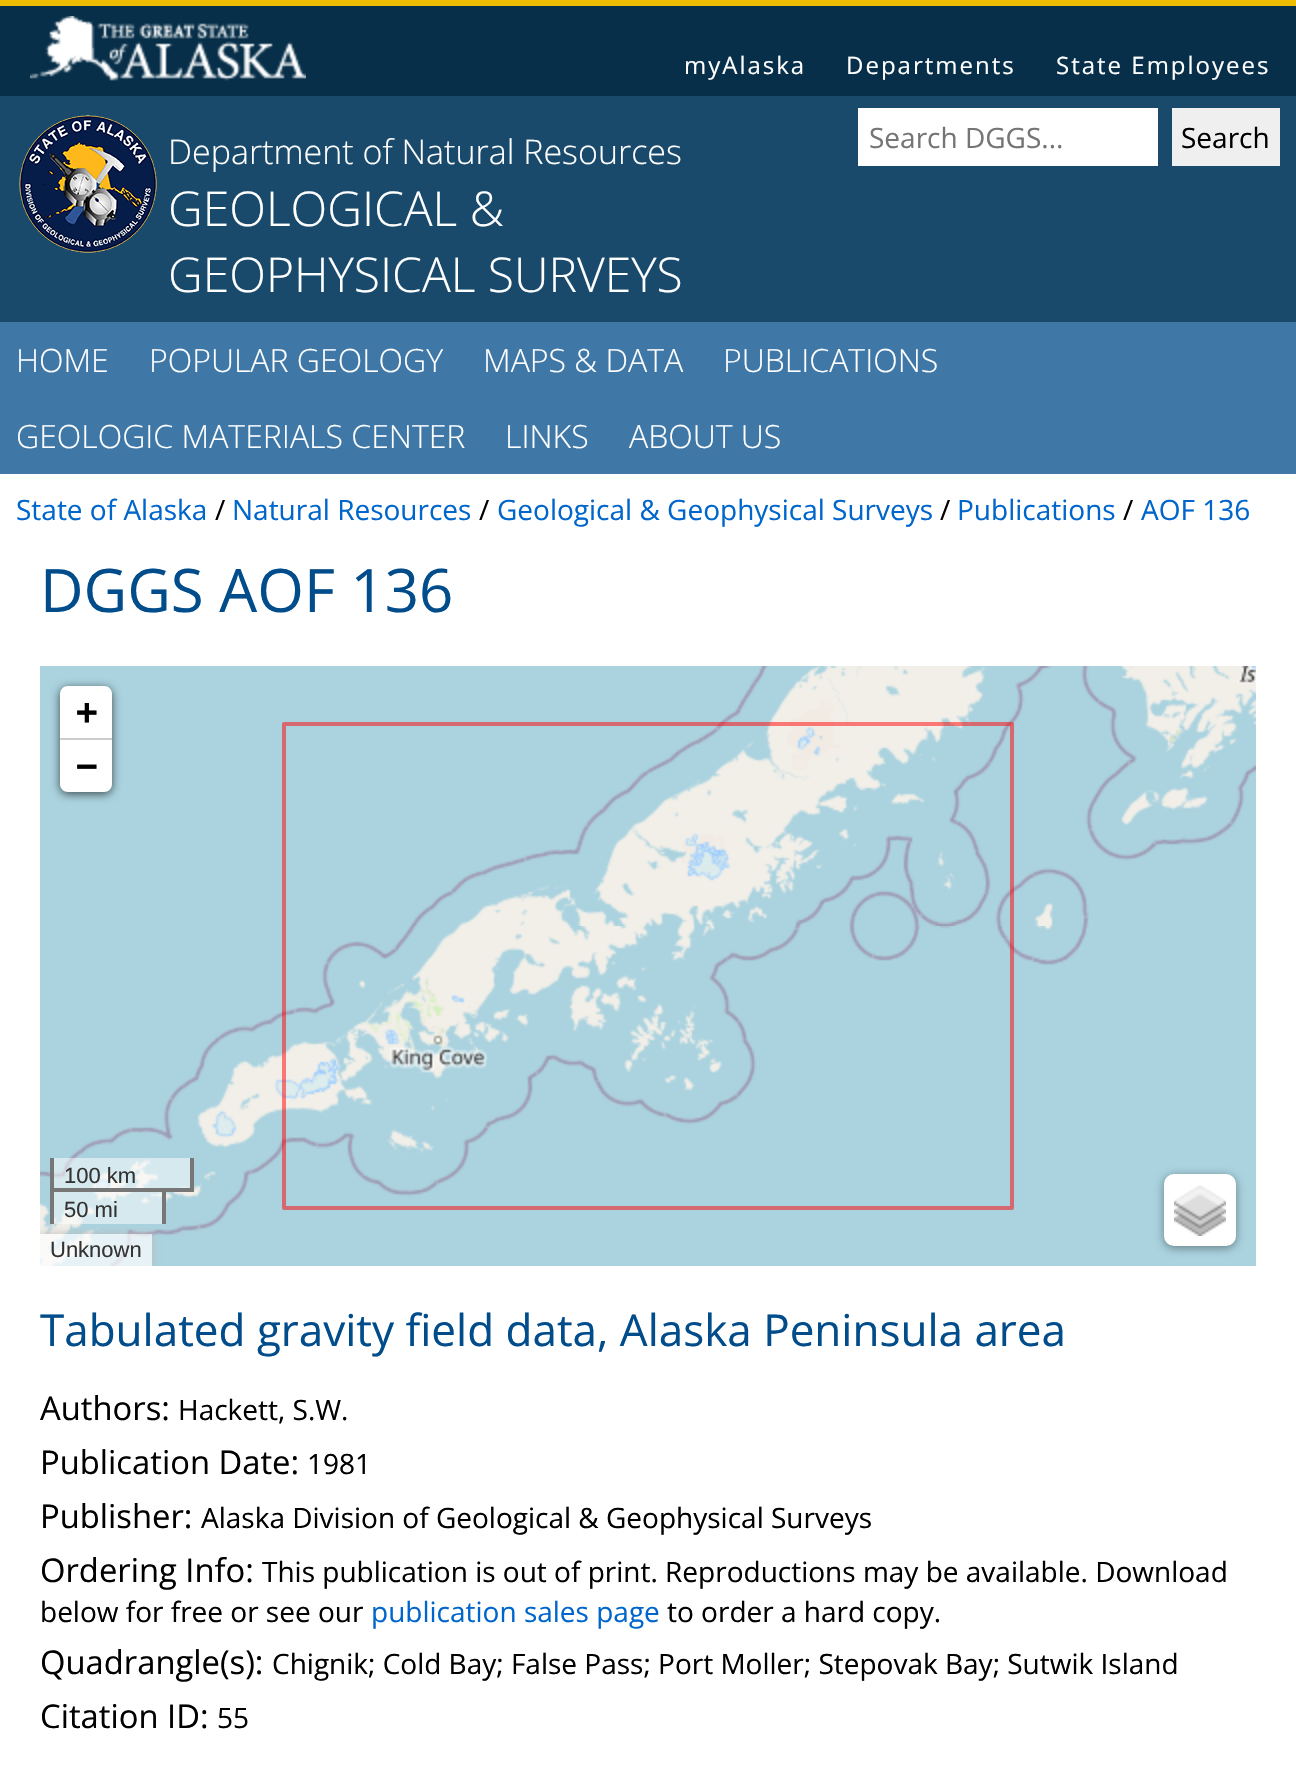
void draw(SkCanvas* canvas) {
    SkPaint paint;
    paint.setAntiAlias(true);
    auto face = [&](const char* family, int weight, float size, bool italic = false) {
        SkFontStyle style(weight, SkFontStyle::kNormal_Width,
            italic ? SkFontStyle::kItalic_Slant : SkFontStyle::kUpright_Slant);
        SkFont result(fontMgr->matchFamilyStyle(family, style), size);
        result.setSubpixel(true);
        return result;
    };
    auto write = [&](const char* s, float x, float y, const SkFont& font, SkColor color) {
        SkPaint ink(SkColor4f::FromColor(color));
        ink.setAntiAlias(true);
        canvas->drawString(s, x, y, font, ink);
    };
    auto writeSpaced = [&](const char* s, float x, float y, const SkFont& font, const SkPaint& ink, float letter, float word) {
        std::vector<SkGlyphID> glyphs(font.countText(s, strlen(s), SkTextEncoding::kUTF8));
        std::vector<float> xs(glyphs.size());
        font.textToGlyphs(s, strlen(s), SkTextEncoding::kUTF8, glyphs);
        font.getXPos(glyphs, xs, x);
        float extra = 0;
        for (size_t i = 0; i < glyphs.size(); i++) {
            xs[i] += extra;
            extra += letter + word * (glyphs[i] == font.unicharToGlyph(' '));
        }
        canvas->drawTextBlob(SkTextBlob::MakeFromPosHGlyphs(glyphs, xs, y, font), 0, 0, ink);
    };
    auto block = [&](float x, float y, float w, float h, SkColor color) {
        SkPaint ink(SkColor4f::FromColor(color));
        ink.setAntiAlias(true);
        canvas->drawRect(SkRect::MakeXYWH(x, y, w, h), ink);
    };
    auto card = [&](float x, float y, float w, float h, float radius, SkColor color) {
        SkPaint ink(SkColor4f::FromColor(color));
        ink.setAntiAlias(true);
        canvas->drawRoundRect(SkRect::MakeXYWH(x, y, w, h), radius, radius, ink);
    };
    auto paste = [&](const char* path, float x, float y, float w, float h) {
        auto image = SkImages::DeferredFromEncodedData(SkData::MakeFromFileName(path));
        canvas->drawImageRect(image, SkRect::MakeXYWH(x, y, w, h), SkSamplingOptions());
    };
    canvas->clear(SkColorSetRGB(7, 47, 73));
    block(0, 0, 1296, 6, SkColorSetRGB(237, 189, 3));
    paste("pic1.png", 30, 16, 276, 65);
    auto kFont1 = face("Open Sans", 400, 24);
    paint.setColor(SK_ColorWHITE);
    writeSpaced("myAlaska", 684, 74, kFont1, paint, 2, 0);
    writeSpaced("Departments", 846, 74, kFont1, paint, 2, 0);
    writeSpaced("State Employees", 1056, 74, kFont1, paint, 2, 0);
    block(0, 96, 1296, 226, SkColorSetRGB(25, 74, 107));
    paste("pic2.png", 19, 115, 138, 138);
    auto kFont2 = face("Open Sans", 300, 34);
    write("Department of Natural Resources", 168, 164, kFont2, SK_ColorWHITE);
    auto kFont3 = face("Open Sans", 300, 48);
    write("GEOLOGICAL &", 168, 226, kFont3, SK_ColorWHITE);
    write("GEOPHYSICAL SURVEYS", 168, 292, kFont3, SK_ColorWHITE);
    block(858, 108, 300, 58, SK_ColorWHITE);
    auto kFont4 = face("Open Sans", 400, 28);
    write("Search DGGS...", 869, 148, kFont4, SkColorSetRGB(117, 117, 117));
    block(1172, 108, 108, 58, SkColorSetRGB(239, 239, 239));
    write("Search", 1181, 148, kFont4, SK_ColorBLACK);
    block(0, 322, 1296, 152, SkColorSetRGB(63, 120, 167));
    auto kFont5 = face("Open Sans", 300, 32);
    write("HOME", 16, 372, kFont5, SK_ColorWHITE);
    write("POPULAR GEOLOGY", 149, 372, kFont5, SK_ColorWHITE);
    write("MAPS & DATA", 483, 372, kFont5, SK_ColorWHITE);
    write("PUBLICATIONS", 723, 372, kFont5, SK_ColorWHITE);
    write("GEOLOGIC MATERIALS CENTER", 16, 448, kFont5, SK_ColorWHITE);
    write("LINKS", 505, 448, kFont5, SK_ColorWHITE);
    write("ABOUT US", 629, 448, kFont5, SK_ColorWHITE);
    block(0, 474, 1296, 1297, SK_ColorWHITE);
    write("State of Alaska", 16, 520, kFont4, SkColorSetRGB(0, 102, 204));
    write("/", 215, 520, kFont4, SK_ColorBLACK);
    write("Natural Resources", 232, 520, kFont4, SkColorSetRGB(0, 102, 204));
    write("/", 479, 520, kFont4, SK_ColorBLACK);
    write("Geological & Geophysical Surveys", 497, 520, kFont4, SkColorSetRGB(0, 102, 204));
    write("/", 940, 520, kFont4, SK_ColorBLACK);
    write("Publications", 957, 520, kFont4, SkColorSetRGB(0, 102, 204));
    write("/", 1123, 520, kFont4, SK_ColorBLACK);
    write("AOF 136", 1141, 520, kFont4, SkColorSetRGB(0, 102, 204));
    auto kFont6 = face("Open Sans", 400, 60);
    write("DGGS AOF 136", 40, 612, kFont6, SkColorSetRGB(1, 76, 139));
    block(40, 666, 324, 260, SkColorSetRGB(170, 211, 223));
    paste("pic3.png", 364, 666, 512, 260);
    paste("pic4.png", 876, 666, 380, 260);
    paste("pic5.png", 40, 926, 324, 340);
    paste("pic6.png", 364, 926, 512, 340);
    paste("pic7.png", 876, 926, 380, 340);
    paint.setStyle(SkPaint::kStroke_Style);
    paint.setStrokeWidth(4);
    paint.setStrokeCap(SkPaint::kRound_Cap);
    paint.setStrokeJoin(SkPaint::kRound_Join);
    paint.setColor(SkColorSetARGB(128, 255, 0, 0));
    canvas->drawPath(SkPathBuilder().moveTo(284, 1208).lineTo(284, 724).lineTo(1012, 724).lineTo(1012, 1208).close().detach(), paint);
    paint.setStyle(SkPaint::kFill_Style);
    paint.setColor(SkColorSetARGB(166, 0, 0, 0));
    paint.setMaskFilter(SkMaskFilter::MakeBlur(kNormal_SkBlurStyle, 5));
    canvas->drawRoundRect(SkRect::MakeXYWH(60, 688, 52, 106), 8, 8, paint);
    paint.setMaskFilter(nullptr);
    paint.setColor(SK_ColorWHITE);
    canvas->drawPath(SkPathBuilder().moveTo(68, 686).lineTo(104, 686).cubicTo(108.5f, 686, 112, 689.5f, 112, 694).lineTo(112, 740).lineTo(60, 740).lineTo(60, 694).cubicTo(60, 689.5f, 63.5f, 686, 68, 686).close().detach(), paint);
    block(60, 738, 52, 2, SkColorSetRGB(204, 204, 204));
    auto kFont7 = face("DejaVu Sans Mono", 700, 36);
    write("+", 76, 724, kFont7, SK_ColorBLACK);
    canvas->drawPath(SkPathBuilder().moveTo(60, 740).lineTo(112, 740).lineTo(112, 784).cubicTo(112, 788.5f, 108.5f, 792, 104, 792).lineTo(68, 792).cubicTo(63.5f, 792, 60, 788.5f, 60, 784).close().detach(), paint);
    write("−", 76, 778, kFont7, SK_ColorBLACK);
    block(54, 1158, 136, 30, SkColorSetARGB(128, 255, 255, 255));
    block(190, 1158, 4, 34, SkColorSetRGB(119, 119, 119));
    block(166, 1188, 28, 4, SkColorSetRGB(119, 119, 119));
    block(50, 1158, 4, 34, SkColorSetRGB(119, 119, 119));
    auto kFont8 = face("Liberation Sans", 400, 22);
    write("100 km", 64, 1183, kFont8, SkColorSetRGB(51, 51, 51));
    block(54, 1192, 108, 32, SkColorSetARGB(128, 255, 255, 255));
    block(50, 1188, 116, 4, SkColorSetRGB(119, 119, 119));
    block(162, 1188, 4, 36, SkColorSetRGB(119, 119, 119));
    block(50, 1188, 4, 36, SkColorSetRGB(119, 119, 119));
    write("50 mi", 64, 1217, kFont8, SkColorSetRGB(51, 51, 51));
    canvas->save();
    canvas->clipRect(SkRect::MakeXYWH(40, 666, 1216, 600));
    canvas->clipPath(SkPathBuilder(SkPathFillType::kEvenOdd).moveTo(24, 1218).lineTo(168, 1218).lineTo(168, 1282).lineTo(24, 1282).close().moveTo(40, 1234).lineTo(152, 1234).lineTo(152, 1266).lineTo(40, 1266).close().detach(), true);
    paint.setColor(SkColorSetRGB(187, 187, 187));
    paint.setMaskFilter(SkMaskFilter::MakeBlur(kNormal_SkBlurStyle, 5));
    canvas->drawRect(SkRect::MakeXYWH(40, 1234, 112, 32), paint);
    paint.setMaskFilter(nullptr);
    canvas->restore();
    block(40, 1234, 112, 32, SkColorSetARGB(179, 255, 255, 255));
    write("Unknown", 50, 1257, kFont8, SkColorSetRGB(51, 51, 51));
    paint.setColor(SkColorSetARGB(102, 0, 0, 0));
    paint.setMaskFilter(SkMaskFilter::MakeBlur(kNormal_SkBlurStyle, 5));
    canvas->drawRoundRect(SkRect::MakeXYWH(1164, 1176, 72, 72), 10, 10, paint);
    paint.setMaskFilter(nullptr);
    card(1164, 1174, 72, 72, 10, SK_ColorWHITE);
    paste("pic8.png", 1174, 1185, 52, 51);
    auto kFont9 = face("Open Sans", 400, 44);
    write("Tabulated gravity field data, Alaska Peninsula area", 40, 1346, kFont9, SkColorSetRGB(1, 76, 139));
    auto kFont10 = face("Open Sans", 400, 32.75f);
    write("Authors:", 40, 1420, kFont10, SK_ColorBLACK);
    write("Hackett, S.W.", 178, 1420, kFont4, SK_ColorBLACK);
    write("Publication Date:", 40, 1474, kFont10, SK_ColorBLACK);
    write("1981", 307, 1474, kFont4, SK_ColorBLACK);
    write("Publisher:", 40, 1528, kFont10, SK_ColorBLACK);
    write("Alaska Division of Geological & Geophysical Surveys", 201, 1528, kFont4, SK_ColorBLACK);
    write("Ordering Info:", 40, 1582, kFont10, SK_ColorBLACK);
    write("This publication is out of print. Reproductions may be available. Download", 262, 1582, kFont4, SK_ColorBLACK);
    write("below for free or see our", 40, 1622, kFont4, SK_ColorBLACK);
    write("publication sales page", 371, 1622, kFont4, SkColorSetRGB(0, 102, 204));
    write("to order a hard copy.", 667, 1622, kFont4, SK_ColorBLACK);
    write("Quadrangle(s):", 40, 1674, kFont10, SK_ColorBLACK);
    write("Chignik; Cold Bay; False Pass; Port Moller; Stepovak Bay; Sutwik Island", 272, 1674, kFont4, SK_ColorBLACK);
    write("Citation ID:", 40, 1728, kFont10, SK_ColorBLACK);
    write("55", 217, 1728, kFont4, SK_ColorBLACK);
}
